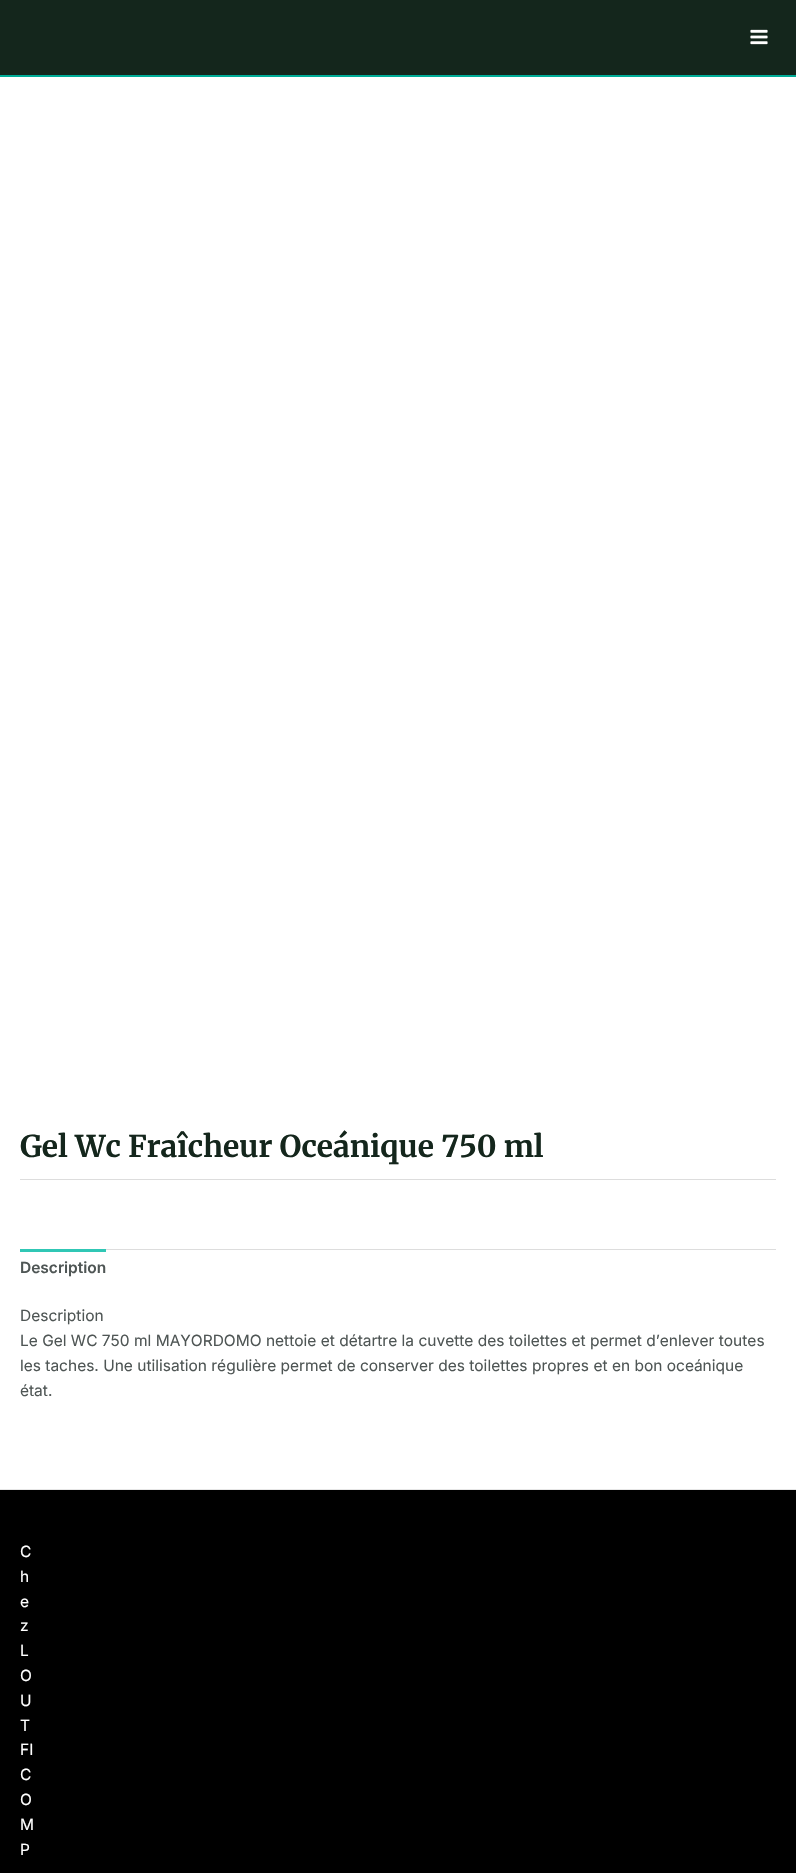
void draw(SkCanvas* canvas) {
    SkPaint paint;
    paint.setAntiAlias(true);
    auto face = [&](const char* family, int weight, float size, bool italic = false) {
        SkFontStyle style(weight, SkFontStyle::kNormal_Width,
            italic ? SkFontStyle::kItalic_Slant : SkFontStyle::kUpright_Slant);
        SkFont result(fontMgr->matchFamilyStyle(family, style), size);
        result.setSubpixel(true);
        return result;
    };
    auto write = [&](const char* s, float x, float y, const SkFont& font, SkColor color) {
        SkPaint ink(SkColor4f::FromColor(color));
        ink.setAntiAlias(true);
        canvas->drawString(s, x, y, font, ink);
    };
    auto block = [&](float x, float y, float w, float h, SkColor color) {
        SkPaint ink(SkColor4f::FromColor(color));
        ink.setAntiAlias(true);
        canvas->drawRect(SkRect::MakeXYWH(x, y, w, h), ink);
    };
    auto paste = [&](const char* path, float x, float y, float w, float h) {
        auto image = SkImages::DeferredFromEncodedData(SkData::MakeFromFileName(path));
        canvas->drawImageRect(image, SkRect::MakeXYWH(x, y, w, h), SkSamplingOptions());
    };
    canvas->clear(SK_ColorWHITE);
    block(0, 0, 796, 75, SkColorSetRGB(20, 38, 28));
    block(0, 75, 796, 2, SkColorSetRGB(0, 172, 151));
    paste("pic1.png", 750, 29, 18, 16);
    auto kFont1 = face("Merriweather", 300, 30);
    write("Gel Wc Fraîcheur Oceánique 750 ml", 20, 1157, kFont1, SkColorSetRGB(20, 38, 28));
    block(20, 1179, 756, 1, SkColorSetRGB(221, 221, 221));
    block(106, 1249, 670, 1, SkColorSetRGB(221, 221, 221));
    block(20, 1249, 86, 3, SkColorSetRGB(48, 199, 181));
    auto kFont2 = face("Inter", 600, 15.5f);
    write("Description", 20, 1273, kFont2, SkColorSetRGB(79, 86, 85));
    auto kFont3 = face("Inter", 400, 15.5f);
    write("Description", 20, 1321, kFont3, SkColorSetRGB(79, 86, 85));
    write("Le Gel WC 750 ml MAYORDOMO nettoie et détartre la cuvette des toilettes et permet d’enlever toutes", 20, 1346, kFont3, SkColorSetRGB(79, 86, 85));
    write("les taches. Une utilisation régulière permet de conserver des toilettes propres et en bon oceánique", 20, 1371, kFont3, SkColorSetRGB(79, 86, 85));
    write("état.", 20, 1396, kFont3, SkColorSetRGB(79, 86, 85));
    block(0, 1490, 796, 383, SK_ColorBLACK);
    block(0, 1489, 796, 1, SkColorSetRGB(230, 230, 230));
    write("C", 20, 1557, kFont3, SK_ColorWHITE);
    write("h", 20, 1582, kFont3, SK_ColorWHITE);
    write("e", 20, 1607, kFont3, SK_ColorWHITE);
    write("z", 20, 1631, kFont3, SK_ColorWHITE);
    write("L", 20, 1656, kFont3, SK_ColorWHITE);
    write("O", 20, 1681, kFont3, SK_ColorWHITE);
    write("U", 20, 1706, kFont3, SK_ColorWHITE);
    write("T", 20, 1731, kFont3, SK_ColorWHITE);
    write("FI", 20, 1755, kFont3, SK_ColorWHITE);
    write("C", 20, 1780, kFont3, SK_ColorWHITE);
    write("O", 20, 1805, kFont3, SK_ColorWHITE);
    write("M", 20, 1830, kFont3, SK_ColorWHITE);
    write("P", 20, 1855, kFont3, SK_ColorWHITE);
}
